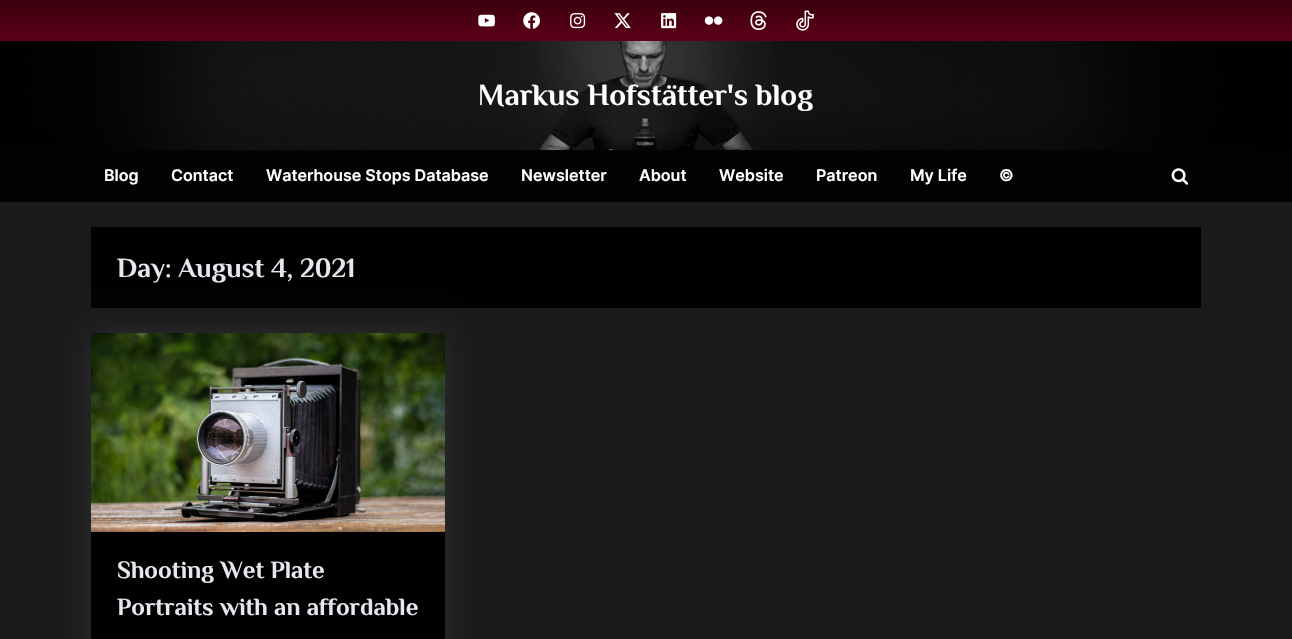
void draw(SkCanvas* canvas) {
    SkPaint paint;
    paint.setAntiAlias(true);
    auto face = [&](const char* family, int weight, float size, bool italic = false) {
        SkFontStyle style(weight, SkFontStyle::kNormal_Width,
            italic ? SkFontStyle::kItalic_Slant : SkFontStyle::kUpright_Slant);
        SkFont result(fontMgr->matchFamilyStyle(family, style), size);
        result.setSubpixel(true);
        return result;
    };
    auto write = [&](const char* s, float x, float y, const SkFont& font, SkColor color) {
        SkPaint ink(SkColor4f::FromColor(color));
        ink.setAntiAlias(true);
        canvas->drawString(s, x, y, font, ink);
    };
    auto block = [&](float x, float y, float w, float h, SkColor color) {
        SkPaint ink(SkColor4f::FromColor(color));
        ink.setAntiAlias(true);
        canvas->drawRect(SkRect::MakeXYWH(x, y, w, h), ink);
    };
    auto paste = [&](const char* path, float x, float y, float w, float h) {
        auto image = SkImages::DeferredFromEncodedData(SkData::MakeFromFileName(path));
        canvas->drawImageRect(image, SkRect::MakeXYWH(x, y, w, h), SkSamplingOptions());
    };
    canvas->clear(SkColorSetRGB(26, 26, 26));
    {
        const SkColor colors[] = {SkColorSetRGB(94, 0, 25), SkColorSetRGB(58, 0, 14)};
        const float stops[] = {0, 1};
        const SkPoint ends[] = {{646, 41}, {646, 0}};
        paint.setShader(SkGradientShader::MakeLinear(ends, colors, stops, 2, SkTileMode::kClamp));
        paint.setAlpha(255);
    }
    canvas->drawRect(SkRect::MakeXYWH(0, 0, 1292, 41), paint);
    paste("pic1.png", 478, 14, 17, 13);
    paste("pic2.png", 523, 12, 17, 17);
    paste("pic3.png", 570, 13, 16, 16);
    paste("pic4.png", 614, 13, 17, 15);
    paste("pic5.png", 661, 13, 16, 16);
    paste("pic6.png", 704, 16, 19, 9);
    paste("pic7.png", 750, 11, 17, 19);
    paste("pic8.png", 796, 10, 18, 21);
    paste("pic9.png", 0, 41, 1292, 109);
    auto kFont1 = face("Philosopher", 700, 30.6f);
    write("Markus Hofstätter's blog", 478, 105, kFont1, SK_ColorWHITE);
    block(0, 150, 1292, 52, SkColorSetRGB(3, 3, 3));
    auto kFont2 = face("Inter", 600, 16.1f);
    write("Blog", 104, 181, kFont2, SK_ColorWHITE);
    write("Contact", 171, 181, kFont2, SK_ColorWHITE);
    write("Waterhouse Stops Database", 266, 181, kFont2, SK_ColorWHITE);
    write("Newsletter", 521, 181, kFont2, SK_ColorWHITE);
    write("About", 639, 181, kFont2, SK_ColorWHITE);
    write("Website", 719, 181, kFont2, SK_ColorWHITE);
    write("Patreon", 816, 181, kFont2, SK_ColorWHITE);
    write("My Life", 910, 181, kFont2, SK_ColorWHITE);
    write("©", 999, 181, kFont2, SK_ColorWHITE);
    paste("pic10.png", 1171, 168, 18, 17);
    block(91, 227, 1110, 81, SkColorSetRGB(1, 1, 1));
    auto kFont3 = face("Philosopher", 700, 27.5f);
    write("Day: August 4, 2021", 117, 277, kFont3, SkColorSetRGB(231, 231, 239));
    paint.setShader(nullptr);
    paint.setColor(SkColorSetARGB(23, 255, 255, 255));
    paint.setMaskFilter(SkMaskFilter::MakeBlur(kNormal_SkBlurStyle, 15));
    canvas->drawRect(SkRect::MakeXYWH(91, 334, 354, 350), paint);
    paint.setMaskFilter(nullptr);
    block(91, 532, 354, 107, SkColorSetRGB(1, 1, 1));
    paste("pic11.png", 91, 333, 354, 199);
    auto kFont4 = face("Philosopher", 700, 24.75f);
    write("Shooting Wet Plate", 117, 578, kFont4, SkColorSetRGB(231, 231, 239));
    write("Portraits with an affordable", 117, 615, kFont4, SkColorSetRGB(231, 231, 239));
}
